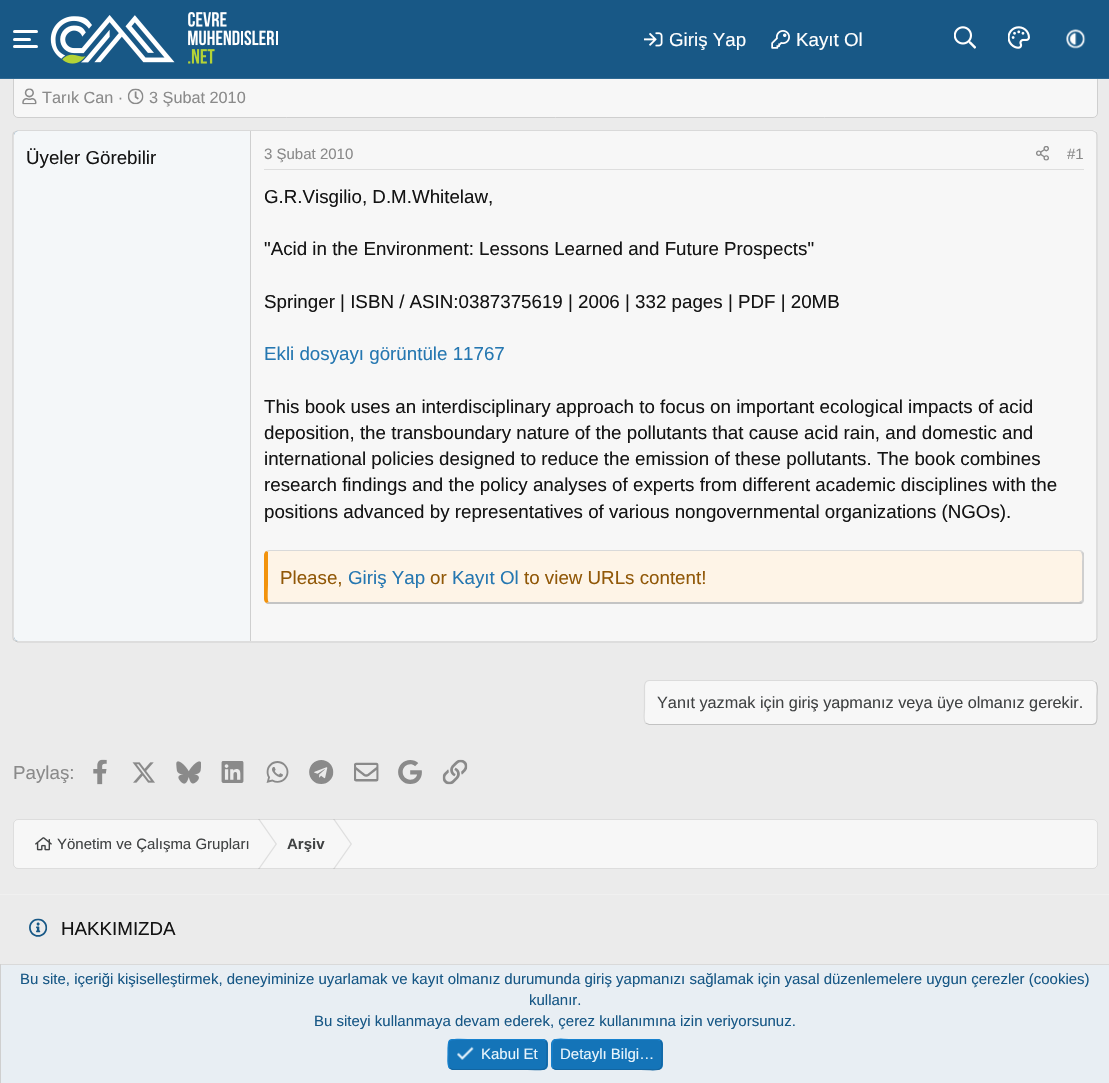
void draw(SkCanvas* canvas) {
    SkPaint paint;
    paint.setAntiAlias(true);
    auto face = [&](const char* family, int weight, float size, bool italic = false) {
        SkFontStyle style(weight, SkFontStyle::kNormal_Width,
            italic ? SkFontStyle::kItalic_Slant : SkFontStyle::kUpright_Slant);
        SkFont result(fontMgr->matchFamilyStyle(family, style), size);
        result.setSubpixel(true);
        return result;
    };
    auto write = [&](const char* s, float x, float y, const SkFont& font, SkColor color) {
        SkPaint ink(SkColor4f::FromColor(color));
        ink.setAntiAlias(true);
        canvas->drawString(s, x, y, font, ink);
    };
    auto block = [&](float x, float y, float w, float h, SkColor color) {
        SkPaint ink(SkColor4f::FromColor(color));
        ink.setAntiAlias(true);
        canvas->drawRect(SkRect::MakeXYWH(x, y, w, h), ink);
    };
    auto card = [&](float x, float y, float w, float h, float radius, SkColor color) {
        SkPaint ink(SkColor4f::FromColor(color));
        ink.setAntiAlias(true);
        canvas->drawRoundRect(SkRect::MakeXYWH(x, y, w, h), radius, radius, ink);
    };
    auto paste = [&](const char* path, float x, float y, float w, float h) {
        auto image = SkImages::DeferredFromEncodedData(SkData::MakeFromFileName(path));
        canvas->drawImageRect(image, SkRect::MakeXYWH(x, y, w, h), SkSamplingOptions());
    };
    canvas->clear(SkColorSetRGB(235, 235, 235));
    paint.setColor(SkColorSetRGB(247, 247, 247));
    canvas->drawRoundRect(SkRect::MakeXYWH(13.5f, 36.5f, 1084, 81), 4.5f, 4.5f, paint);
    paint.setStyle(SkPaint::kStroke_Style);
    paint.setStrokeWidth(1);
    paint.setColor(SkColorSetRGB(207, 207, 207));
    canvas->drawRoundRect(SkRect::MakeXYWH(13.5f, 36.5f, 1084, 81), 4.5f, 4.5f, paint);
    block(0, 0, 1109, 78, SkColorSetRGB(24, 88, 134));
    block(0, 78, 1109, 1, SkColorSetRGB(47, 105, 146));
    card(13, 38, 18, 3, 1.5f, SK_ColorWHITE);
    card(13, 30, 25, 3, 1.5f, SK_ColorWHITE);
    card(13, 45, 25, 3, 1.5f, SK_ColorWHITE);
    paste("pic1.png", 50, 15, 125, 49);
    paste("pic2.png", 188, 12, 90, 52);
    paste("pic3.png", 644, 32, 19, 15);
    auto kFont1 = face("Liberation Sans", 400, 18.75f);
    write("Giriş Yap", 669, 46, kFont1, SK_ColorWHITE);
    paste("pic4.png", 771, 30, 19, 19);
    write("Kayıt Ol", 796, 46, kFont1, SK_ColorWHITE);
    paste("pic5.png", 954, 26, 22, 23);
    paste("pic6.png", 1008, 26, 22, 23);
    paste("pic7.png", 1066, 29, 20, 20);
    paste("pic8.png", 22, 88, 15, 17);
    auto kFont2 = face("Liberation Sans", 400, 16.25f);
    write("Tarık Can ·", 42, 103, kFont2, SkColorSetRGB(138, 138, 138));
    paste("pic9.png", 127, 88, 17, 17);
    write("3 Şubat 2010", 149, 103, kFont2, SkColorSetRGB(138, 138, 138));
    card(13, 130, 1085, 513, 5, SkColorSetRGB(247, 247, 247));
    paint.setStrokeWidth(1.2f);
    paint.setColor(SkColorSetRGB(217, 217, 217));
    canvas->drawPath(SkPathBuilder().moveTo(14.5f, 132).lineTo(17.5f, 130.5f).lineTo(1092.5f, 130.5f).lineTo(1095.5f, 132).detach(), paint);
    paint.setColor(SkColorSetRGB(207, 207, 207));
    canvas->drawPath(SkPathBuilder().moveTo(1095.5f, 132).cubicTo(1096.5f, 132.5f, 1097, 134, 1097, 135).lineTo(1097, 637.5f).cubicTo(1097, 638.5f, 1096.5f, 640, 1095.5f, 640.5f).detach(), paint);
    paint.setColor(SkColorSetRGB(196, 196, 196));
    canvas->drawPath(SkPathBuilder().moveTo(1095.5f, 640.5f).lineTo(1092.5f, 642).lineTo(17.5f, 642).lineTo(14.5f, 640.5f).detach(), paint);
    paint.setColor(SkColorSetRGB(207, 207, 207));
    canvas->drawPath(SkPathBuilder().moveTo(14.5f, 640.5f).cubicTo(13.5f, 640, 13, 638.5f, 13, 637.5f).lineTo(13, 135).cubicTo(13, 134, 13.5f, 132.5f, 14.5f, 132).detach(), paint);
    paint.setStyle(SkPaint::kFill_Style);
    paint.setColor(SkColorSetRGB(24, 88, 134));
    canvas->drawPath(SkPathBuilder().moveTo(18, 131).lineTo(251, 131).lineTo(251, 641).lineTo(18, 641).cubicTo(16, 641, 14, 639, 14, 637).lineTo(14, 135).cubicTo(14, 133, 16, 131, 18, 131).close().detach(), paint);
    paint.setColor(SkColorSetARGB(242, 255, 255, 255));
    canvas->drawPath(SkPathBuilder().moveTo(18, 131).lineTo(251, 131).lineTo(251, 641).lineTo(18, 641).cubicTo(16, 641, 14, 639, 14, 637).lineTo(14, 135).cubicTo(14, 133, 16, 131, 18, 131).close().detach(), paint);
    block(250, 131, 1, 510, SkColorSetRGB(207, 207, 207));
    write("Üyeler Görebilir", 26, 164, kFont1, SkColorSetRGB(20, 20, 20));
    block(264, 169, 820, 1, SkColorSetRGB(222, 222, 222));
    auto kFont3 = face("Liberation Sans", 400, 15);
    write("3 Şubat 2010", 264, 159, kFont3, SkColorSetRGB(138, 138, 138));
    paste("pic10.png", 1036, 146, 13, 15);
    write("#1", 1067, 159, kFont3, SkColorSetRGB(138, 138, 138));
    write("G.R.Visgilio, D.M.Whitelaw,", 264, 203, kFont1, SkColorSetRGB(20, 20, 20));
    write("\"Acid in the Environment: Lessons Learned and Future Prospects\"", 264, 255, kFont1, SkColorSetRGB(20, 20, 20));
    write("Springer | ISBN / ASIN:0387375619 | 2006 | 332 pages | PDF | 20MB", 264, 308, kFont1, SkColorSetRGB(20, 20, 20));
    write("Ekli dosyayı görüntüle 11767", 264, 360, kFont1, SkColorSetRGB(37, 119, 177));
    write("This book uses an interdisciplinary approach to focus on important ecological impacts of acid", 264, 413, kFont1, SkColorSetRGB(20, 20, 20));
    write("deposition, the transboundary nature of the pollutants that cause acid rain, and domestic and", 264, 439, kFont1, SkColorSetRGB(20, 20, 20));
    write("international policies designed to reduce the emission of these pollutants. The book combines", 264, 465, kFont1, SkColorSetRGB(20, 20, 20));
    write("research findings and the policy analyses of experts from different academic disciplines with the", 264, 491, kFont1, SkColorSetRGB(20, 20, 20));
    write("positions advanced by representatives of various nongovernmental organizations (NGOs).", 264, 518, kFont1, SkColorSetRGB(20, 20, 20));
    paint.setColor(SkColorSetRGB(254, 244, 231));
    canvas->drawPath(SkPathBuilder().moveTo(269, 551).lineTo(1079, 551).cubicTo(1081, 551, 1082, 553, 1082, 555).lineTo(1082, 599).cubicTo(1082, 601, 1081, 602, 1079, 602).lineTo(269, 602).cubicTo(268, 602, 268, 601, 268, 599).lineTo(268, 555).cubicTo(268, 553, 268, 551, 269, 551).close().detach(), paint);
    paint.setColor(SkColorSetRGB(217, 217, 217));
    canvas->drawPath(SkPathBuilder().moveTo(269, 550).lineTo(266, 551).lineTo(268, 552).lineTo(269, 551).lineTo(1079, 551).cubicTo(1080, 551, 1081, 552, 1081, 552).lineTo(1082, 551).cubicTo(1082, 550, 1080, 550, 1079, 550).close().detach(), paint);
    paint.setColor(SkColorSetRGB(207, 207, 207));
    canvas->drawPath(SkPathBuilder().moveTo(1084, 601).lineTo(1083, 603).lineTo(1081, 601).lineTo(1082, 600).lineTo(1082, 562).cubicTo(1082, 561, 1083, 555, 1081, 552).lineTo(1082, 551).lineTo(1084, 553).close().detach(), paint);
    paint.setColor(SkColorSetRGB(196, 196, 196));
    canvas->drawPath(SkPathBuilder().moveTo(267, 604).lineTo(266, 603).lineTo(269, 602).lineTo(1079, 602).lineTo(1081, 601).lineTo(1083, 603).lineTo(1081, 604).close().detach(), paint);
    paint.setColor(SkColorSetRGB(242, 147, 13));
    canvas->drawPath(SkPathBuilder().moveTo(266, 551).cubicTo(265, 552, 264, 553, 264, 555).lineTo(264, 599).cubicTo(264, 601, 265, 602, 266, 603).lineTo(269, 602).cubicTo(267, 602, 268, 589, 268, 584).lineTo(268, 552).close().detach(), paint);
    write("Please,", 280, 584, kFont1, SkColorSetRGB(145, 88, 8));
    write("Giriş Yap", 348, 584, kFont1, SkColorSetRGB(37, 119, 177));
    write("or", 430, 584, kFont1, SkColorSetRGB(145, 88, 8));
    write("Kayıt Ol", 452, 584, kFont1, SkColorSetRGB(37, 119, 177));
    write("to view URLs content!", 524, 584, kFont1, SkColorSetRGB(145, 88, 8));
    card(644, 680, 454, 45, 5, SkColorSetRGB(247, 247, 247));
    paint.setStyle(SkPaint::kStroke_Style);
    paint.setColor(SkColorSetRGB(194, 194, 194));
    canvas->drawPath(SkPathBuilder().moveTo(1095.5f, 682).cubicTo(1098.5f, 684.5f, 1097, 693.5f, 1097, 696.5f).lineTo(1097, 714).cubicTo(1097, 717.5f, 1098, 724.5f, 1092.5f, 724.5f).lineTo(649, 724.5f).lineTo(645.5f, 723).detach(), paint);
    paint.setColor(SkColorSetRGB(219, 219, 219));
    canvas->drawPath(SkPathBuilder().moveTo(645.5f, 723).cubicTo(643, 720.5f, 644.5f, 711.5f, 644.5f, 708.5f).lineTo(644.5f, 691).cubicTo(644.5f, 687.5f, 643.5f, 680.5f, 649, 680.5f).lineTo(1092.5f, 680.5f).lineTo(1095.5f, 682).detach(), paint);
    write("Yanıt yazmak için giriş yapmanız veya üye olmanız gerekir.", 657, 708, kFont2, SkColorSetRGB(65, 67, 68));
    write("Paylaş:", 13, 779, kFont1, SkColorSetRGB(138, 138, 138));
    paste("pic11.png", 93, 759, 14, 26);
    paste("pic12.png", 132, 762, 23, 21);
    paste("pic13.png", 176, 761, 25, 23);
    paste("pic14.png", 221, 761, 23, 22);
    paste("pic15.png", 266, 761, 23, 22);
    paste("pic16.png", 309, 760, 25, 24);
    paste("pic17.png", 354, 762, 25, 20);
    paste("pic18.png", 398, 760, 24, 24);
    paste("pic19.png", 442, 759, 26, 26);
    card(13, 819, 1085, 50, 5, SkColorSetRGB(247, 247, 247));
    paste("pic20.png", 35, 837, 17, 14);
    paint.setStyle(SkPaint::kFill_Style);
    paint.setColor(SkColorSetRGB(223, 223, 223));
    canvas->drawPath(SkPathBuilder().moveTo(258, 819).lineTo(259.5f, 819).lineTo(277, 844).lineTo(275.5f, 844).close().moveTo(275.5f, 844).lineTo(277, 844).lineTo(259.5f, 869).lineTo(258, 869).close().detach(), paint);
    canvas->drawPath(SkPathBuilder().moveTo(333, 819).lineTo(334.5f, 819).lineTo(352, 844).lineTo(350.5f, 844).close().moveTo(350.5f, 844).lineTo(352, 844).lineTo(334.5f, 869).lineTo(333, 869).close().detach(), paint);
    paint.setStyle(SkPaint::kStroke_Style);
    paint.setStrokeWidth(1);
    paint.setColor(SkColorSetARGB(26, 0, 0, 0));
    canvas->drawRoundRect(SkRect::MakeXYWH(13.5f, 819.5f, 1084, 49), 4.5f, 4.5f, paint);
    write("Yönetim ve Çalışma Grupları", 57, 849, kFont3, SkColorSetRGB(65, 67, 68));
    auto kFont4 = face("Liberation Sans", 700, 15);
    write("Arşiv", 287, 849, kFont4, SkColorSetRGB(65, 67, 68));
    block(0, 894, 1109, 1, SkColorSetRGB(240, 240, 240));
    paste("pic21.png", 29, 918, 19, 19);
    write("HAKKIMIZDA", 61, 935, kFont1, SkColorSetRGB(20, 20, 20));
    block(1, 965, 1108, 118, SkColorSetRGB(232, 238, 243));
    block(0, 964, 1109, 1, SkColorSetRGB(217, 217, 217));
    block(0, 964, 1, 119, SkColorSetRGB(207, 207, 207));
    write("Bu site, içeriği kişiselleştirmek, deneyiminize uyarlamak ve kayıt olmanız durumunda giriş yapmanızı sağlamak için yasal düzenlemelere uygun çerezler (cookies)", 20, 984, kFont3, SkColorSetRGB(24, 88, 134));
    write("kullanır.", 529, 1005, kFont3, SkColorSetRGB(24, 88, 134));
    write("Bu siteyi kullanmaya devam ederek, çerez kullanımına izin veriyorsunuz.", 314, 1026, kFont3, SkColorSetRGB(24, 88, 134));
    card(448, 1039, 100, 31, 5, SkColorSetRGB(20, 116, 184));
    paint.setStrokeWidth(1.2f);
    paint.setColor(SkColorSetRGB(18, 101, 161));
    canvas->drawPath(SkPathBuilder().moveTo(545.5f, 1040.5f).cubicTo(548, 1043.5f, 547, 1051, 547, 1054.5f).cubicTo(547, 1072.5f, 548, 1069.5f, 527.5f, 1069.5f).lineTo(452.5f, 1069.5f).lineTo(449.5f, 1068).detach(), paint);
    paint.setColor(SkColorSetRGB(23, 130, 207));
    canvas->drawPath(SkPathBuilder().moveTo(449.5f, 1068).cubicTo(447, 1065.5f, 448, 1057.5f, 448, 1054.5f).cubicTo(448, 1036, 447, 1039.5f, 467.5f, 1039.5f).lineTo(542.5f, 1039.5f).lineTo(545.5f, 1040.5f).detach(), paint);
    paste("pic22.png", 457, 1046, 17, 14);
    write("Kabul Et", 481, 1059, kFont3, SkColorSetRGB(232, 244, 252));
    card(551, 1039, 112, 31, 5, SkColorSetRGB(20, 116, 184));
    paint.setColor(SkColorSetRGB(18, 101, 161));
    canvas->drawPath(SkPathBuilder().moveTo(660.5f, 1040.5f).cubicTo(663, 1043.5f, 662, 1051, 662, 1054.5f).cubicTo(662, 1073.5f, 662.5f, 1069.5f, 640.5f, 1069.5f).lineTo(556, 1069.5f).lineTo(553, 1068).detach(), paint);
    paint.setColor(SkColorSetRGB(23, 130, 207));
    canvas->drawPath(SkPathBuilder().moveTo(553, 1068).cubicTo(550.5f, 1065.5f, 552, 1057.5f, 552, 1054.5f).cubicTo(552, 1035.5f, 551, 1039.5f, 573, 1039.5f).lineTo(657.5f, 1039.5f).lineTo(660.5f, 1040.5f).detach(), paint);
    write("Detaylı Bilgi…", 560, 1059, kFont3, SkColorSetRGB(232, 244, 252));
}
